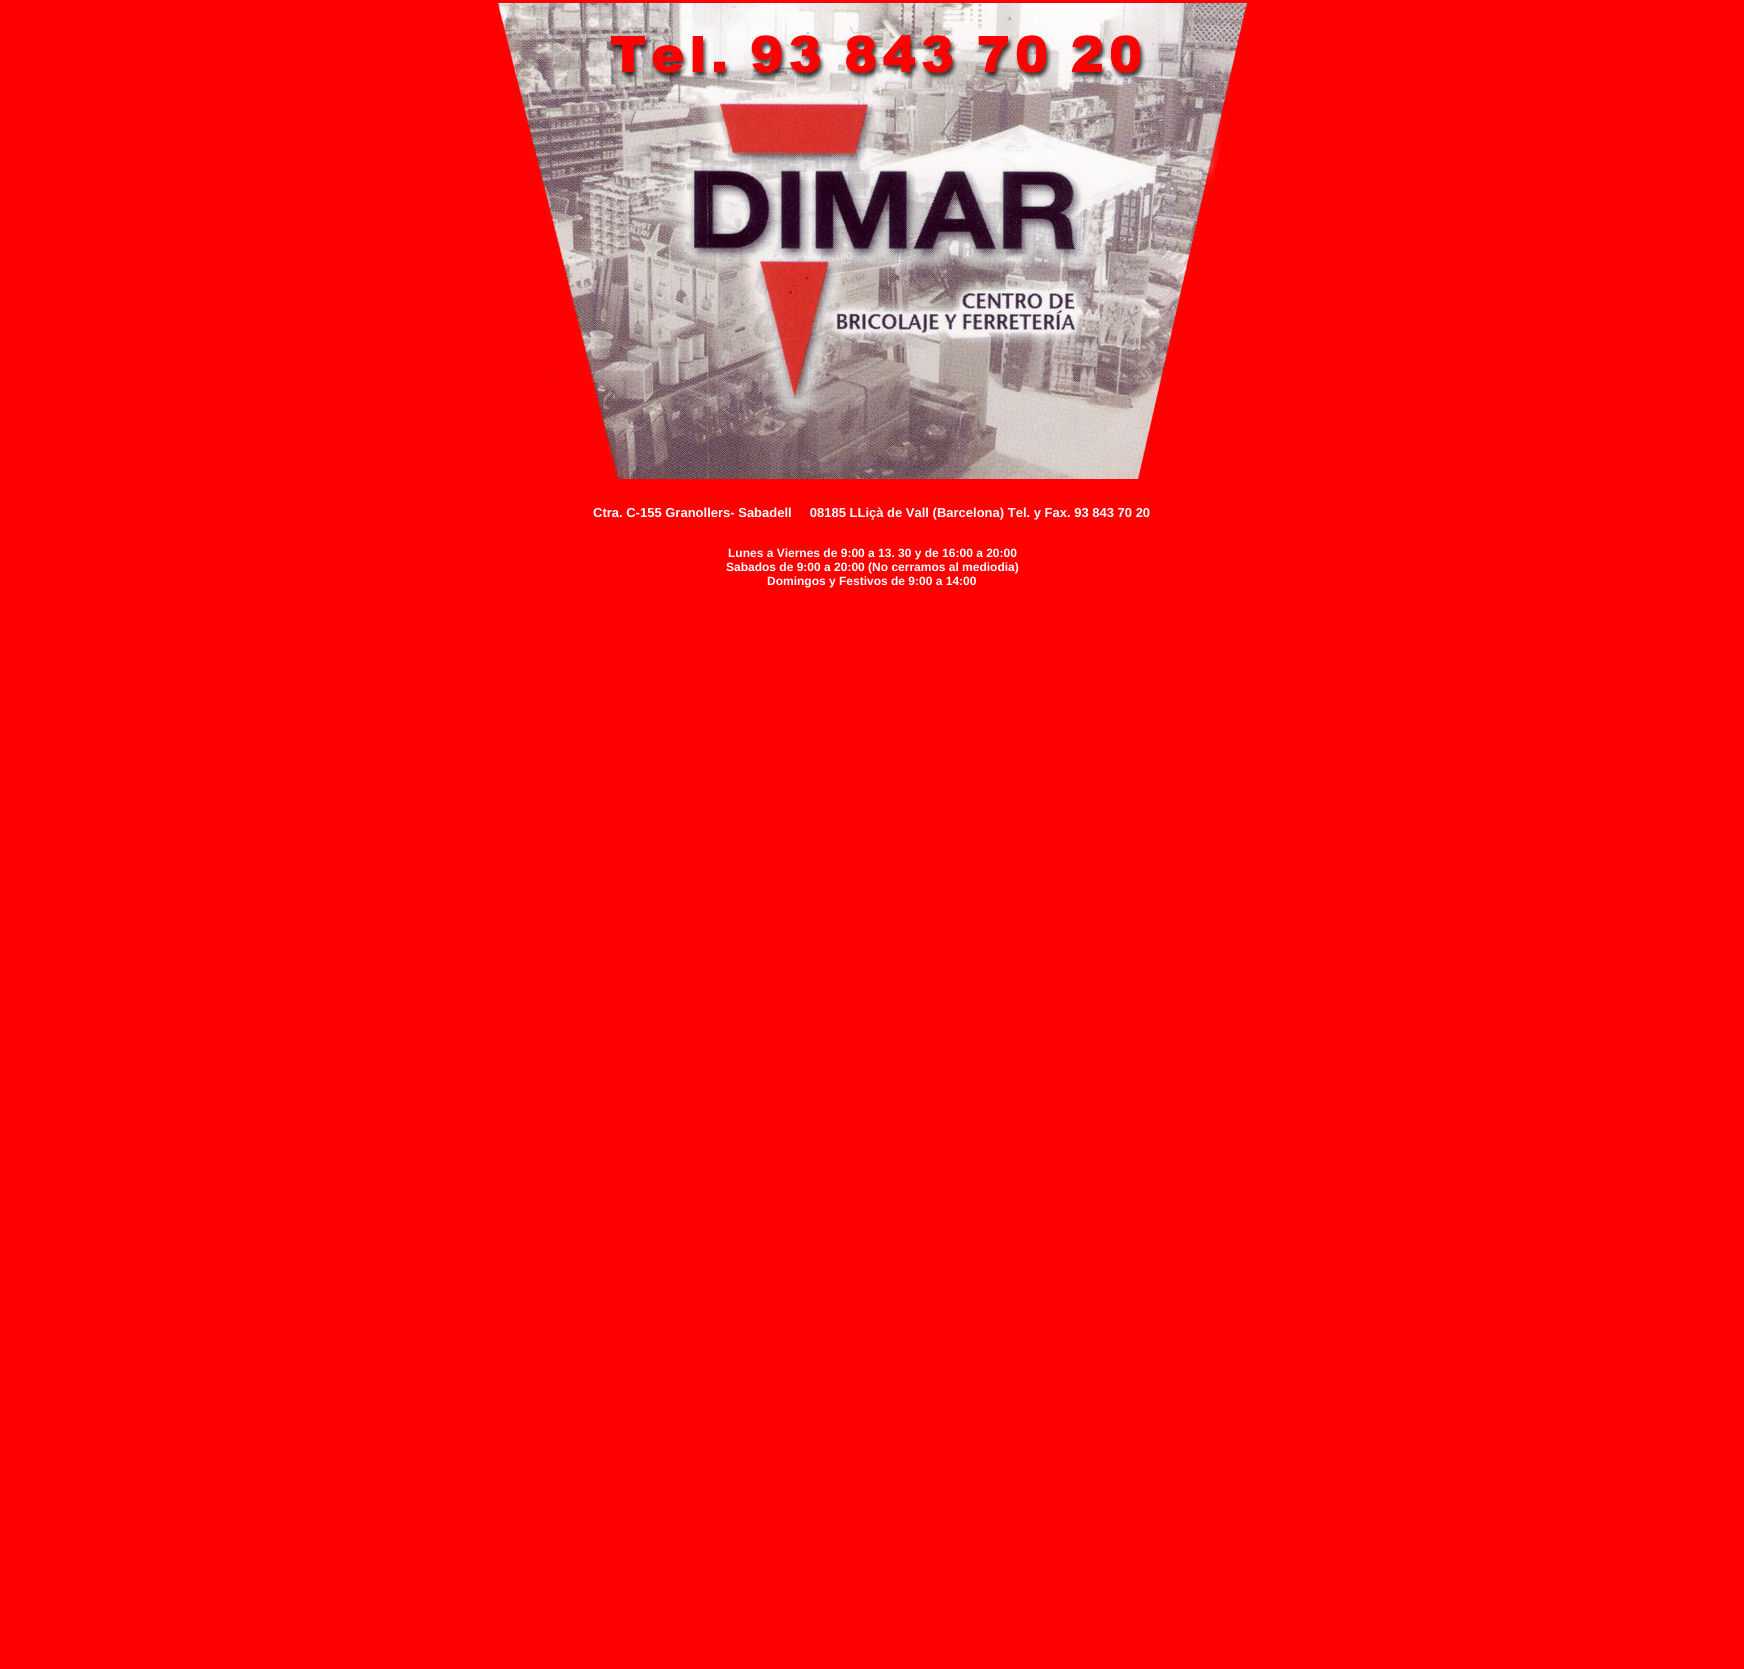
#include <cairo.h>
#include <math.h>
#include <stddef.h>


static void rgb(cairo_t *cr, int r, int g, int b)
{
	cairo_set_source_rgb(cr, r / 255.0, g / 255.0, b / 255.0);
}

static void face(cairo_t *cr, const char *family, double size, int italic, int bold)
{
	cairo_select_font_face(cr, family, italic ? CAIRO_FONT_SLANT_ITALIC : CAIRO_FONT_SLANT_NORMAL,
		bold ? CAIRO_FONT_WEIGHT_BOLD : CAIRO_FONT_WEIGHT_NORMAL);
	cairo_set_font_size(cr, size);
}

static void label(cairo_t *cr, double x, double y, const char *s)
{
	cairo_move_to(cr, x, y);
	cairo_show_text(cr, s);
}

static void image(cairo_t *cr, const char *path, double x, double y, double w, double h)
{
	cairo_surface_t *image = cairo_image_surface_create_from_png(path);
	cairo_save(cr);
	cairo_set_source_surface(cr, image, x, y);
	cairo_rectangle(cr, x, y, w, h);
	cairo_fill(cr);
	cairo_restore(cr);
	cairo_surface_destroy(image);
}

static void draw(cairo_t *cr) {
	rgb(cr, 255, 0, 0);
	cairo_paint(cr);
	image(cr, "image0.png", 497, 3, 750, 476);
	face(cr, "Liberation Sans", 13, 0, 1);
	rgb(cr, 255, 255, 255);
	label(cr, 593, 517, "Ctra. C-155 Granollers- Sabadell     08185 LLiçà de Vall (Barcelona) Tel. y Fax. 93 843 70 20");
	face(cr, "Liberation Sans", 12, 0, 1);
	label(cr, 728, 557, "Lunes a Viernes de 9:00 a 13. 30 y de 16:00 a 20:00");
	label(cr, 726, 571, "Sabados de 9:00 a 20:00 (No cerramos al mediodia)");
	label(cr, 767, 585, "Domingos y Festivos de 9:00 a 14:00");
}

int main(void) {
	cairo_surface_t *surface = cairo_image_surface_create(CAIRO_FORMAT_RGB24, 1744, 1669);
	cairo_t *cr = cairo_create(surface);
	cairo_font_options_t *options = cairo_font_options_create();
	cairo_font_options_set_hint_metrics(options, CAIRO_HINT_METRICS_OFF);
	cairo_font_options_set_hint_style(options, CAIRO_HINT_STYLE_NONE);
	cairo_set_font_options(cr, options);
	cairo_set_miter_limit(cr, 4);
	draw(cr);
	cairo_surface_write_to_png(surface, "render.png");
	cairo_font_options_destroy(options);
	cairo_destroy(cr);
	cairo_surface_destroy(surface);
	return 0;
}
